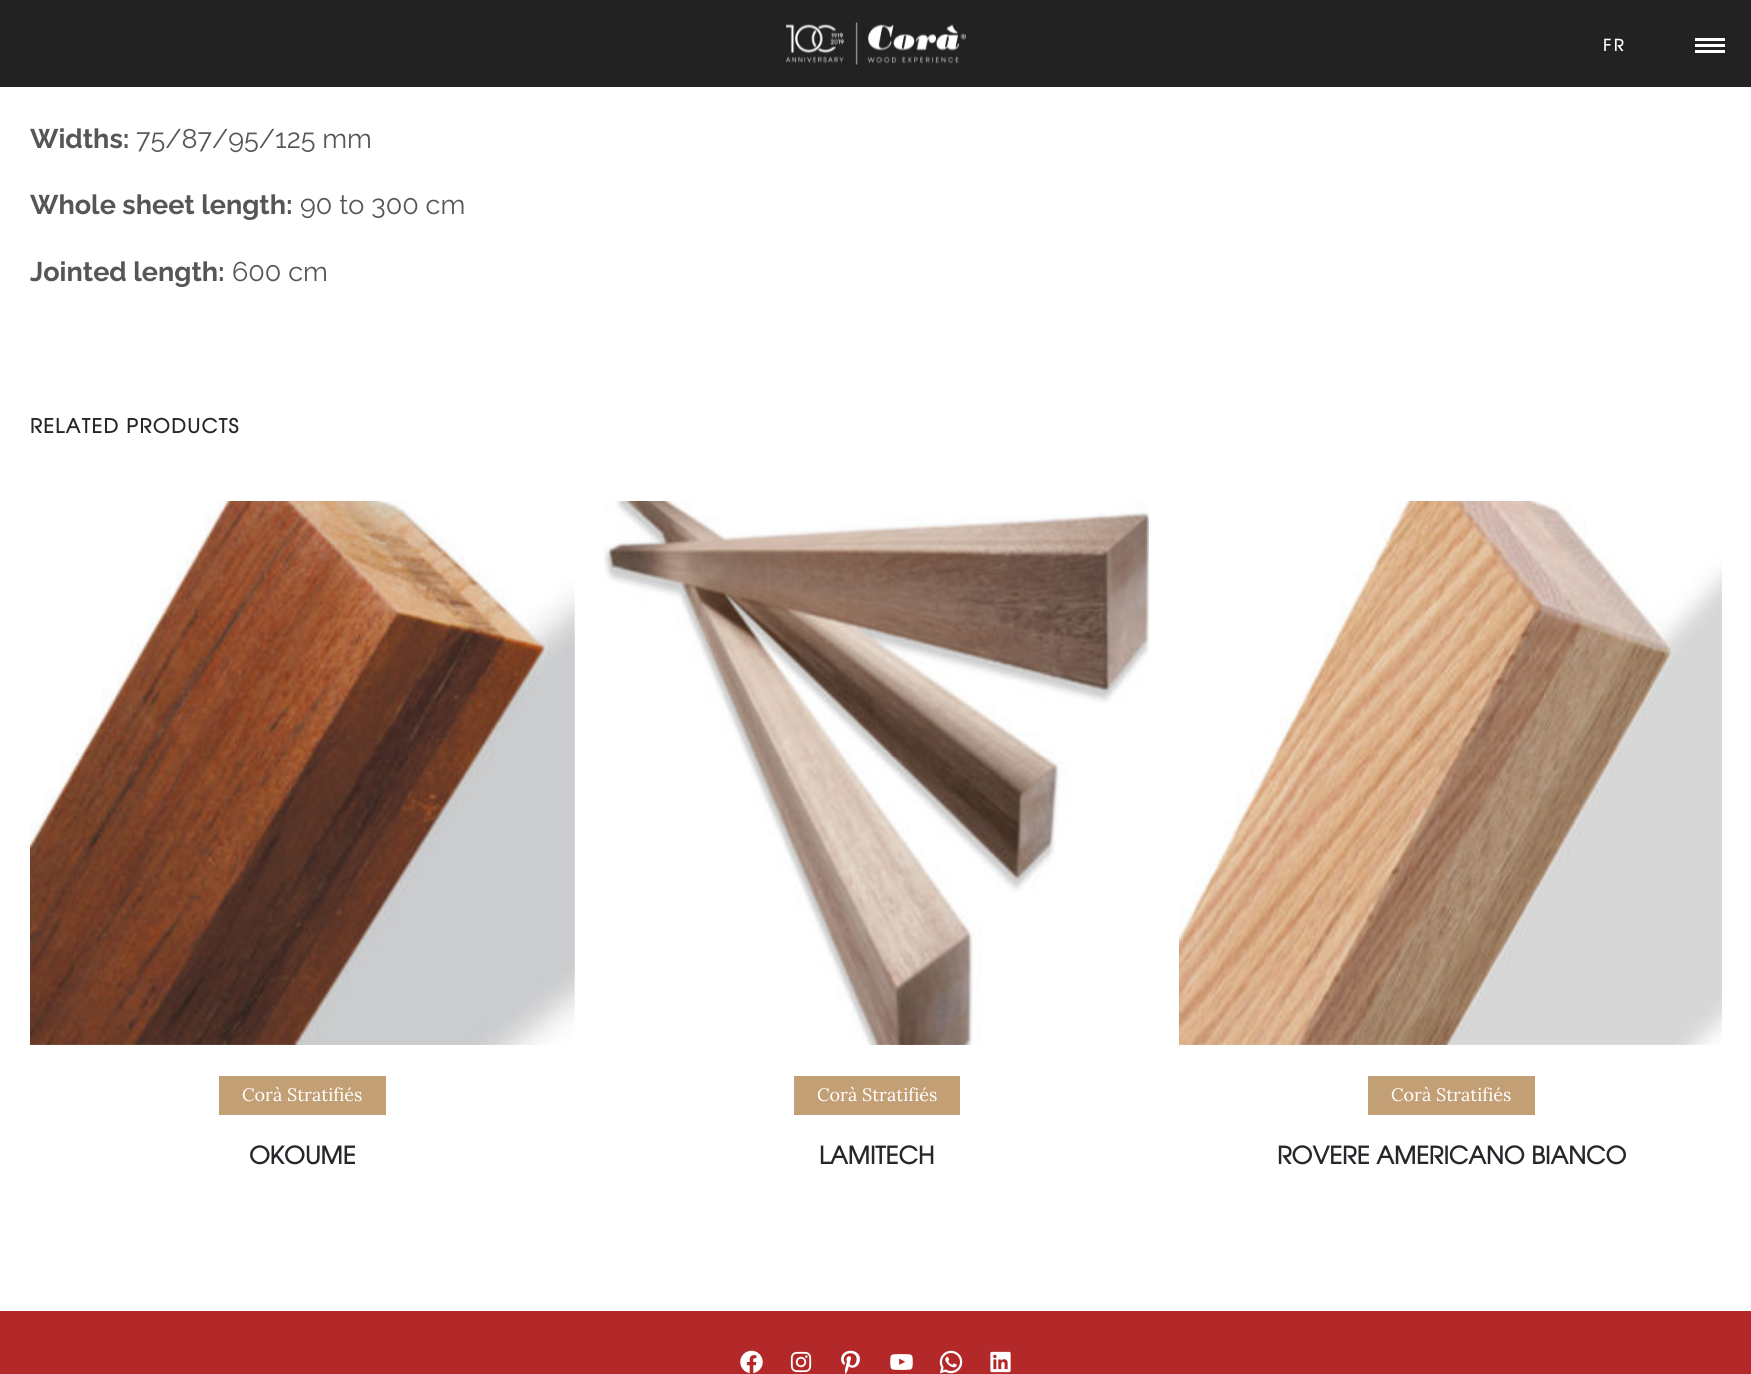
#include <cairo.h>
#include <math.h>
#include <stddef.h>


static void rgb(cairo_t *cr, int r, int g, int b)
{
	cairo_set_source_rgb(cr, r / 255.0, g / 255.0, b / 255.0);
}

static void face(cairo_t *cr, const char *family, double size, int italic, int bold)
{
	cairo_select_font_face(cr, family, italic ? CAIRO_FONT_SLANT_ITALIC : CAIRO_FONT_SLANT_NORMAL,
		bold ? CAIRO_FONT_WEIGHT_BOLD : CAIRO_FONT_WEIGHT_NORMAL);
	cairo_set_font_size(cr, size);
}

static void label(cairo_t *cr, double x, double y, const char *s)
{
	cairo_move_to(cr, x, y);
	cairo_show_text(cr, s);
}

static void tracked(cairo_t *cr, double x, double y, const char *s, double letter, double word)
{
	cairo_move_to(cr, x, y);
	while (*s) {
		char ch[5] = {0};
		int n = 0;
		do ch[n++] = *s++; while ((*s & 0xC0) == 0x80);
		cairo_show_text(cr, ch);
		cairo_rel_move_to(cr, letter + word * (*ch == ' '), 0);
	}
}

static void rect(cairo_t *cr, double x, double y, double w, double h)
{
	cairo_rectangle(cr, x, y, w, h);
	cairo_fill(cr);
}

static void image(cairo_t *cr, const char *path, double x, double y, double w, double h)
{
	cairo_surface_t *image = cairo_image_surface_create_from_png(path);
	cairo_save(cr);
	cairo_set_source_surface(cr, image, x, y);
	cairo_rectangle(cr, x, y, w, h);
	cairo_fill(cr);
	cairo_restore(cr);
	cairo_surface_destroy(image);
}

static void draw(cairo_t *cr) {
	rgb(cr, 255, 255, 255);
	cairo_paint(cr);
	rgb(cr, 34, 34, 34);
	rect(cr, 0, 0, 1751, 87);
	image(cr, "image0.png", 786, 22, 180, 43);
	face(cr, "TeX Gyre Adventor", 16, 0, 1);
	rgb(cr, 255, 255, 255);
	tracked(cr, 1603, 51, "FR", 3, 0);
	rect(cr, 1695, 38, 30, 3);
	rect(cr, 1695, 44, 30, 3);
	rect(cr, 1695, 50, 30, 3);
	face(cr, "Raleway", 27, 0, 1);
	rgb(cr, 86, 86, 86);
	label(cr, 30, 148, "Widths:");
	face(cr, "Raleway", 27, 0, 0);
	label(cr, 136, 148, "75/87/95/125 mm");
	face(cr, "Raleway", 27, 0, 1);
	label(cr, 30, 214, "Whole sheet length:");
	face(cr, "Raleway", 27, 0, 0);
	label(cr, 300, 214, "90 to 300 cm");
	face(cr, "Raleway", 27, 0, 1);
	label(cr, 30, 281, "Jointed length:");
	face(cr, "Raleway", 27, 0, 0);
	label(cr, 232, 281, "600 cm");
	face(cr, "TeX Gyre Adventor", 19.5, 0, 1);
	rgb(cr, 40, 38, 43);
	tracked(cr, 30, 433, "RELATED PRODUCTS", 1.5, 0);
	image(cr, "image1.png", 30, 501, 545, 544);
	image(cr, "image2.png", 30, 604, 545, 441);
	rgb(cr, 195, 159, 118);
	rect(cr, 219, 1076, 167, 39);
	face(cr, "Lora", 18, 0, 0);
	rgb(cr, 255, 255, 255);
	label(cr, 242, 1101, "Corà Stratifiés");
	face(cr, "TeX Gyre Adventor", 24, 0, 1);
	rgb(cr, 40, 38, 43);
	label(cr, 249, 1164, "OKOUME");
	image(cr, "image3.png", 604, 501, 545, 544);
	image(cr, "image4.png", 870, 515, 279, 530);
	rgb(cr, 195, 159, 118);
	rect(cr, 794, 1076, 166, 39);
	face(cr, "Lora", 18, 0, 0);
	rgb(cr, 255, 255, 255);
	label(cr, 817, 1101, "Corà Stratifiés");
	face(cr, "TeX Gyre Adventor", 24, 0, 1);
	rgb(cr, 40, 38, 43);
	label(cr, 819, 1164, "LAMITECH");
	image(cr, "image5.png", 1179, 501, 543, 544);
	image(cr, "image6.png", 1179, 1044, 516, 1);
	rgb(cr, 195, 159, 118);
	rect(cr, 1368, 1076, 167, 39);
	face(cr, "Lora", 18, 0, 0);
	rgb(cr, 255, 255, 255);
	label(cr, 1391, 1101, "Corà Stratifiés");
	face(cr, "TeX Gyre Adventor", 24, 0, 1);
	rgb(cr, 40, 38, 43);
	label(cr, 1277, 1164, "ROVERE AMERICANO BIANCO");
	rgb(cr, 179, 41, 41);
	rect(cr, 0, 1311, 1751, 63);
	image(cr, "image7.png", 740, 1350, 23, 24);
	image(cr, "image8.png", 790, 1351, 22, 22);
	image(cr, "image9.png", 841, 1350, 19, 24);
	image(cr, "image10.png", 890, 1354, 23, 16);
	image(cr, "image11.png", 939, 1350, 24, 24);
	image(cr, "image12.png", 990, 1351, 21, 22);
}

int main(void) {
	cairo_surface_t *surface = cairo_image_surface_create(CAIRO_FORMAT_RGB24, 1751, 1374);
	cairo_t *cr = cairo_create(surface);
	cairo_font_options_t *options = cairo_font_options_create();
	cairo_font_options_set_hint_metrics(options, CAIRO_HINT_METRICS_OFF);
	cairo_font_options_set_hint_style(options, CAIRO_HINT_STYLE_NONE);
	cairo_set_font_options(cr, options);
	cairo_set_miter_limit(cr, 4);
	draw(cr);
	cairo_surface_write_to_png(surface, "render.png");
	cairo_font_options_destroy(options);
	cairo_destroy(cr);
	cairo_surface_destroy(surface);
	return 0;
}
